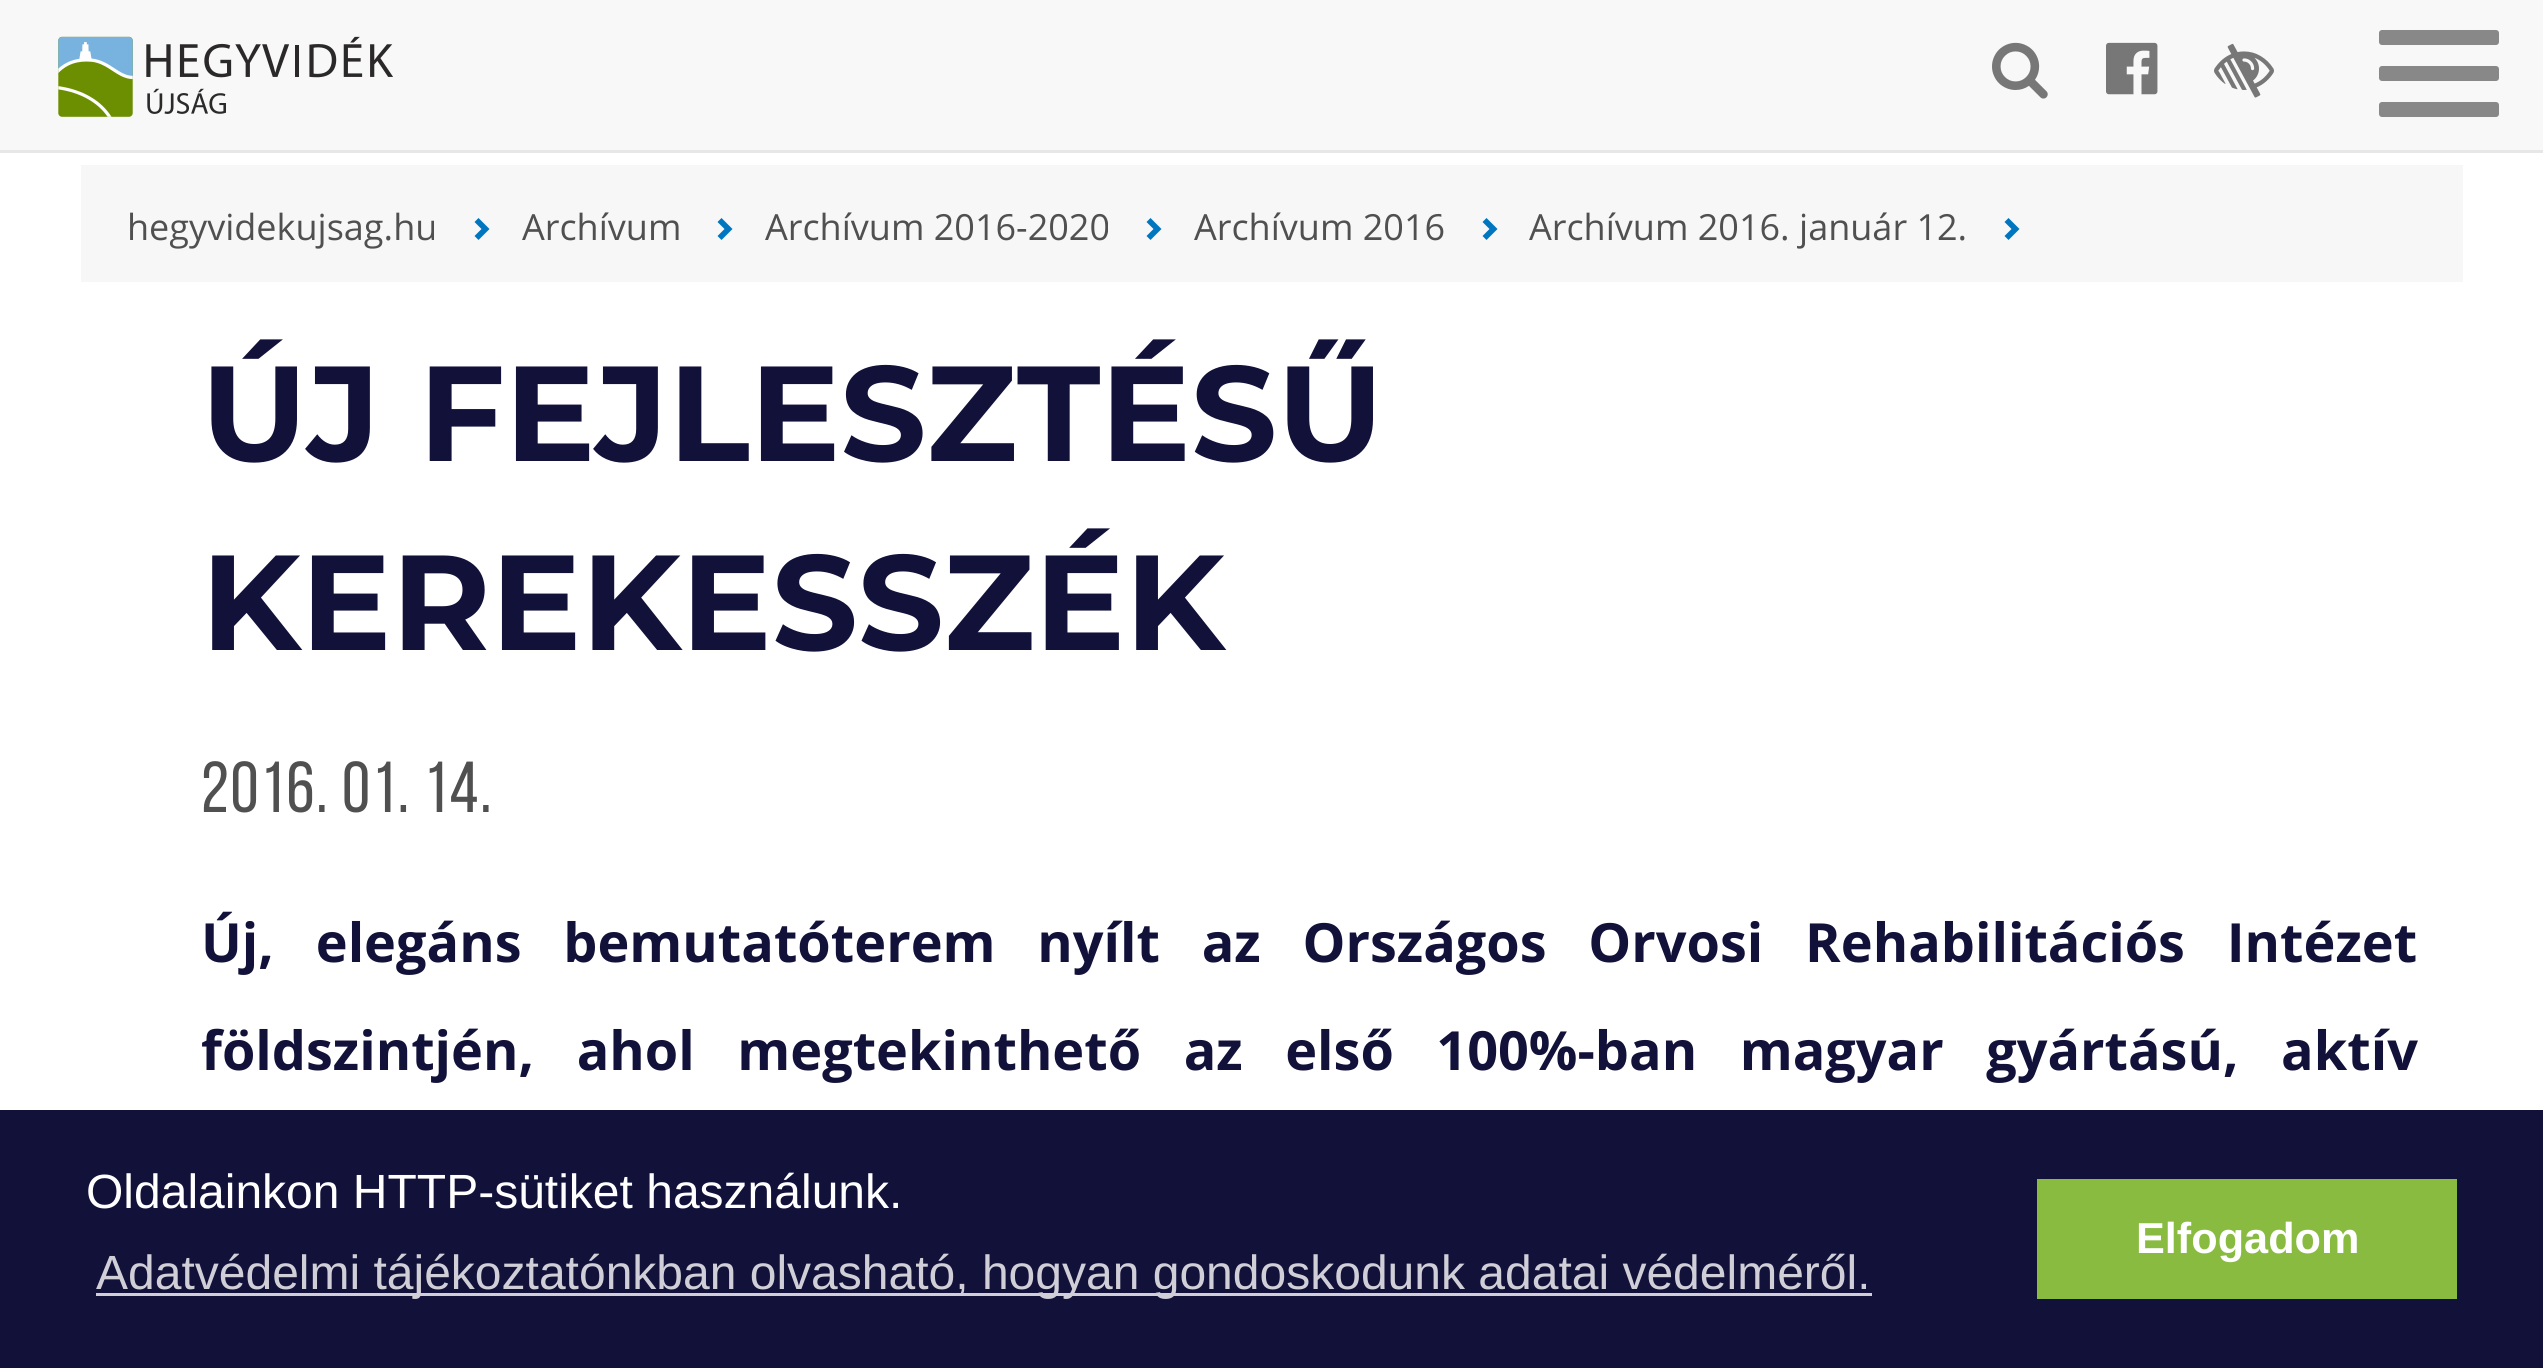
#include <cairo.h>
#include <math.h>
#include <stddef.h>


static void rgb(cairo_t *cr, int r, int g, int b)
{
	cairo_set_source_rgb(cr, r / 255.0, g / 255.0, b / 255.0);
}

static void face(cairo_t *cr, const char *family, double size, int italic, int bold)
{
	cairo_select_font_face(cr, family, italic ? CAIRO_FONT_SLANT_ITALIC : CAIRO_FONT_SLANT_NORMAL,
		bold ? CAIRO_FONT_WEIGHT_BOLD : CAIRO_FONT_WEIGHT_NORMAL);
	cairo_set_font_size(cr, size);
}

static void label(cairo_t *cr, double x, double y, const char *s)
{
	cairo_move_to(cr, x, y);
	cairo_show_text(cr, s);
}

static void tracked(cairo_t *cr, double x, double y, const char *s, double letter, double word)
{
	cairo_move_to(cr, x, y);
	while (*s) {
		char ch[5] = {0};
		int n = 0;
		do ch[n++] = *s++; while ((*s & 0xC0) == 0x80);
		cairo_show_text(cr, ch);
		cairo_rel_move_to(cr, letter + word * (*ch == ' '), 0);
	}
}

static void rect(cairo_t *cr, double x, double y, double w, double h)
{
	cairo_rectangle(cr, x, y, w, h);
	cairo_fill(cr);
}

static void rrect(cairo_t *cr, double x, double y, double w, double h, double r)
{
	cairo_new_sub_path(cr);
	cairo_arc(cr, x + w - r, y + h - r, r, 0, M_PI / 2);
	cairo_arc(cr, x + r, y + h - r, r, M_PI / 2, M_PI);
	cairo_arc(cr, x + r, y + r, r, M_PI, 1.5 * M_PI);
	cairo_arc(cr, x + w - r, y + r, r, 1.5 * M_PI, 2 * M_PI);
	cairo_close_path(cr);
}

static void image(cairo_t *cr, const char *path, double x, double y, double w, double h)
{
	cairo_surface_t *image = cairo_image_surface_create_from_png(path);
	cairo_save(cr);
	cairo_set_source_surface(cr, image, x, y);
	cairo_rectangle(cr, x, y, w, h);
	cairo_fill(cr);
	cairo_restore(cr);
	cairo_surface_destroy(image);
}

static void draw(cairo_t *cr) {
	rgb(cr, 255, 255, 255);
	cairo_paint(cr);
	rgb(cr, 248, 248, 248);
	rect(cr, 0, 0, 2543, 150);
	rgb(cr, 231, 231, 231);
	rect(cr, 0, 150, 2543, 3);
	image(cr, "image0.png", 58, 36, 335, 81);
	image(cr, "image1.png", 1992, 42, 56, 57);
	image(cr, "image2.png", 2106, 42, 52, 53);
	image(cr, "image3.png", 2214, 43, 60, 55);
	rgb(cr, 136, 136, 136);
	rrect(cr, 2379, 30, 120, 15, 3);
	cairo_fill(cr);
	rrect(cr, 2379, 66, 120, 15, 3);
	cairo_fill(cr);
	rrect(cr, 2379, 102, 120, 15, 3);
	cairo_fill(cr);
	rgb(cr, 247, 247, 247);
	rect(cr, 81, 165, 2382, 117);
	face(cr, "Open Sans", 36, 0, 0);
	rgb(cr, 80, 80, 80);
	label(cr, 127, 240, "hegyvidekujsag.hu");
	rgb(cr, 0, 117, 192);
	cairo_new_path(cr);
	cairo_move_to(cr, 489.5, 229);
	cairo_line_to(cr, 478.5, 240);
	cairo_line_to(cr, 474.5, 236);
	cairo_line_to(cr, 481.5, 229);
	cairo_line_to(cr, 474.5, 222);
	cairo_line_to(cr, 478.5, 218);
	cairo_close_path(cr);
	cairo_fill(cr);
	rgb(cr, 80, 80, 80);
	label(cr, 522, 240, "Archívum");
	rgb(cr, 0, 117, 192);
	cairo_new_path(cr);
	cairo_move_to(cr, 732.5, 229);
	cairo_line_to(cr, 721.5, 240);
	cairo_line_to(cr, 717.5, 236);
	cairo_line_to(cr, 724.5, 229);
	cairo_line_to(cr, 717.5, 222);
	cairo_line_to(cr, 721.5, 218);
	cairo_close_path(cr);
	cairo_fill(cr);
	rgb(cr, 80, 80, 80);
	label(cr, 765, 240, "Archívum 2016-2020");
	rgb(cr, 0, 117, 192);
	cairo_new_path(cr);
	cairo_move_to(cr, 1161.5, 229);
	cairo_line_to(cr, 1150.5, 240);
	cairo_line_to(cr, 1146.5, 236);
	cairo_line_to(cr, 1153.5, 229);
	cairo_line_to(cr, 1146.5, 222);
	cairo_line_to(cr, 1150.5, 218);
	cairo_close_path(cr);
	cairo_fill(cr);
	rgb(cr, 80, 80, 80);
	label(cr, 1194, 240, "Archívum 2016");
	rgb(cr, 0, 117, 192);
	cairo_new_path(cr);
	cairo_move_to(cr, 1497.5, 229);
	cairo_line_to(cr, 1486.5, 240);
	cairo_line_to(cr, 1482.5, 236);
	cairo_line_to(cr, 1489.5, 229);
	cairo_line_to(cr, 1482.5, 222);
	cairo_line_to(cr, 1486.5, 218);
	cairo_close_path(cr);
	cairo_fill(cr);
	rgb(cr, 80, 80, 80);
	label(cr, 1529, 240, "Archívum 2016. január 12.");
	rgb(cr, 0, 117, 192);
	cairo_new_path(cr);
	cairo_move_to(cr, 2019.5, 229);
	cairo_line_to(cr, 2008.5, 240);
	cairo_line_to(cr, 2004.5, 236);
	cairo_line_to(cr, 2011.5, 229);
	cairo_line_to(cr, 2004.5, 222);
	cairo_line_to(cr, 2008.5, 218);
	cairo_close_path(cr);
	cairo_fill(cr);
	face(cr, "Montserrat", 135, 0, 1);
	rgb(cr, 18, 17, 58);
	label(cr, 201, 461, "ÚJ FEJLESZTÉSŰ");
	label(cr, 201, 650, "KEREKESSZÉK");
	face(cr, "Bebas Neue", 72, 0, 0);
	rgb(cr, 80, 80, 80);
	tracked(cr, 201, 812, "2016. 01. 14.", 1.75, 0);
	face(cr, "Open Sans", 54, 0, 1);
	rgb(cr, 18, 17, 58);
	tracked(cr, 201, 962, "Új, elegáns bemutatóterem nyílt az Országos Orvosi Rehabilitációs Intézet", 0, 27.75);
	tracked(cr, 201, 1070, "földszintjén, ahol megtekinthető az első 100%-ban magyar gyártású, aktív", 0, 28.5);
	rect(cr, 0, 1110, 2543, 258);
	face(cr, "Liberation Sans", 48, 0, 0);
	rgb(cr, 255, 255, 255);
	label(cr, 86, 1208, "Oldalainkon HTTP-sütiket használunk.");
	rgb(cr, 208, 207, 216);
	rect(cr, 96, 1293, 1776, 3);
	label(cr, 96, 1289, "Adatvédelmi tájékoztatónkban olvasható, hogyan gondoskodunk adatai védelméről.");
	rgb(cr, 137, 187, 64);
	rect(cr, 2037, 1179, 420, 120);
	face(cr, "Liberation Sans", 43.25, 0, 1);
	rgb(cr, 255, 255, 255);
	label(cr, 2136, 1253, "Elfogadom");
}

int main(void) {
	cairo_surface_t *surface = cairo_image_surface_create(CAIRO_FORMAT_RGB24, 2543, 1368);
	cairo_t *cr = cairo_create(surface);
	cairo_font_options_t *options = cairo_font_options_create();
	cairo_font_options_set_hint_metrics(options, CAIRO_HINT_METRICS_OFF);
	cairo_font_options_set_hint_style(options, CAIRO_HINT_STYLE_NONE);
	cairo_set_font_options(cr, options);
	cairo_set_miter_limit(cr, 4);
	draw(cr);
	cairo_surface_write_to_png(surface, "render.png");
	cairo_font_options_destroy(options);
	cairo_destroy(cr);
	cairo_surface_destroy(surface);
	return 0;
}
